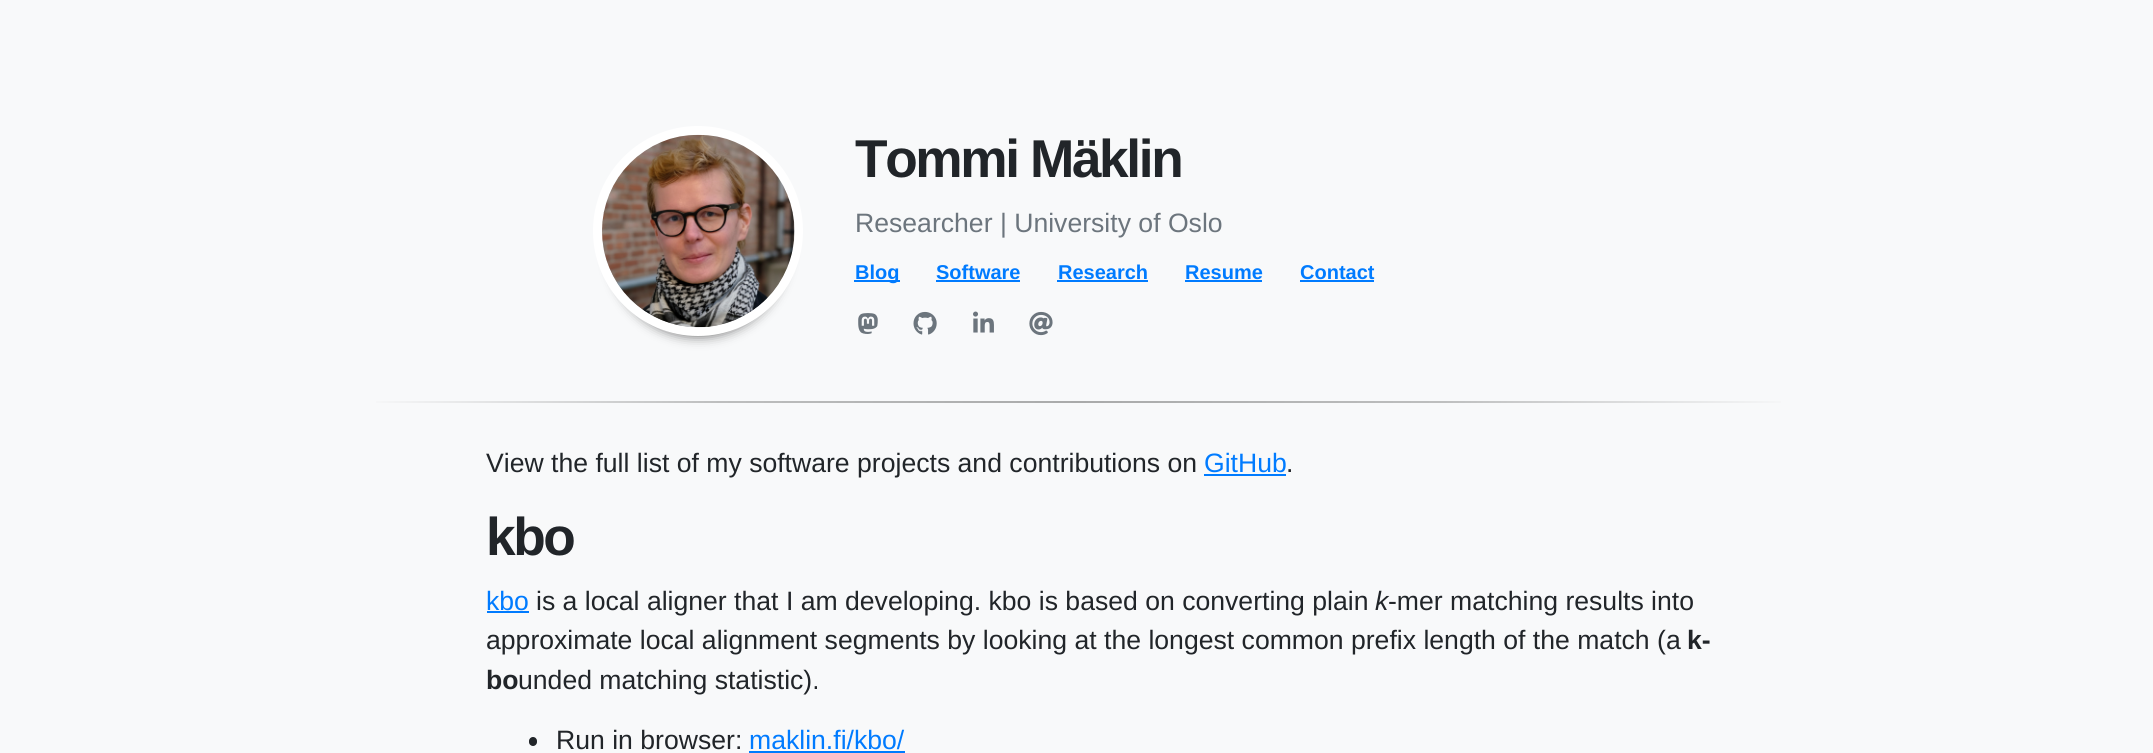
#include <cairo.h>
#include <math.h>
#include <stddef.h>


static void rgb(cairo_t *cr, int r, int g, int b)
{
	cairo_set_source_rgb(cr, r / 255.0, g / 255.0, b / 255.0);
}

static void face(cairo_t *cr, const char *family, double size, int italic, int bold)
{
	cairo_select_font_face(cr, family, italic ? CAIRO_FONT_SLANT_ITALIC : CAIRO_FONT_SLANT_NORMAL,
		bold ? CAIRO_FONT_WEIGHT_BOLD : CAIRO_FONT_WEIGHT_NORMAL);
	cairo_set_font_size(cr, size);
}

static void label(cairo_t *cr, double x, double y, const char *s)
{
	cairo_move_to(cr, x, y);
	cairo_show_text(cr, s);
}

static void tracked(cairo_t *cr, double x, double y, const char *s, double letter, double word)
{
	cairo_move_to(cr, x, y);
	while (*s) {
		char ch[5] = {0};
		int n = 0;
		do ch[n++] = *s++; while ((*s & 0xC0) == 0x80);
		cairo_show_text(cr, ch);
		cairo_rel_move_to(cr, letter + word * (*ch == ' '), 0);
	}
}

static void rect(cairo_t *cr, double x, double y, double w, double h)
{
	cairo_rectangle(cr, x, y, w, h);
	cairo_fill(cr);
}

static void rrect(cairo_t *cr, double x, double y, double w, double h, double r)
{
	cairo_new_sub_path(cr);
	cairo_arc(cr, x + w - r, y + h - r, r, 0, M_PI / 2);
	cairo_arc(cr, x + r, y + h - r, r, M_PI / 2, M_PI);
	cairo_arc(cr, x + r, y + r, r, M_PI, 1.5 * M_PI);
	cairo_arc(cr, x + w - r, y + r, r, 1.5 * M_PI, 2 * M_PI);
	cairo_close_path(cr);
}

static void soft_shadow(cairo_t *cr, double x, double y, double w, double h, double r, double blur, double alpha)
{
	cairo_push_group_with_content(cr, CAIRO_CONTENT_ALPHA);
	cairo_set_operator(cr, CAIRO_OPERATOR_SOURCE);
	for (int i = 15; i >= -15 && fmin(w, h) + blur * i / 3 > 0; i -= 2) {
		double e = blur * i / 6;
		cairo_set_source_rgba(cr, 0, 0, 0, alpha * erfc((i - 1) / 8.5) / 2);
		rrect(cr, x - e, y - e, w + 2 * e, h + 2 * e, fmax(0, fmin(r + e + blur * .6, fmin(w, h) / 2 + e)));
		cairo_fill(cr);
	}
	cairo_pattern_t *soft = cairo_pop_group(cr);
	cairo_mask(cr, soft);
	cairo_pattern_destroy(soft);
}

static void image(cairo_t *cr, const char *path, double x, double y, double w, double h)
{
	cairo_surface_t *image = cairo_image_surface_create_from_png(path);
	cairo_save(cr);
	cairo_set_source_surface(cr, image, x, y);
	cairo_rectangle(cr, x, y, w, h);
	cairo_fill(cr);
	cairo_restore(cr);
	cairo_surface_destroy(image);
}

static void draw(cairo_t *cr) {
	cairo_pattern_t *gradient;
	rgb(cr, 248, 249, 250);
	cairo_paint(cr);
	rgb(cr, 0, 0, 0);
	soft_shadow(cr, 611, 161, 175, 175, 87.5, 6, 0.6);
	cairo_arc(cr, 698, 231, 100.5, 0, 2 * M_PI);
	rgb(cr, 255, 255, 255);
	cairo_set_line_width(cr, 9);
	cairo_stroke(cr);
	image(cr, "image0.png", 602, 134, 193, 194);
	face(cr, "Liberation Sans", 53.25, 0, 1);
	rgb(cr, 33, 37, 41);
	tracked(cr, 855, 177, "Tommi Mäklin", -2.4, 0);
	face(cr, "Liberation Sans", 26.6, 0, 0);
	rgb(cr, 108, 117, 125);
	label(cr, 855, 232, "Researcher | University of Oslo");
	rgb(cr, 0, 123, 255);
	rect(cr, 854, 280, 46, 2);
	face(cr, "Liberation Sans", 20, 0, 1);
	label(cr, 855, 279, "Blog");
	label(cr, 936, 279, "Software");
	rect(cr, 936, 280, 84, 2);
	label(cr, 1058, 279, "Research");
	rect(cr, 1057, 280, 91, 2);
	label(cr, 1185, 279, "Resume");
	rect(cr, 1185, 280, 77, 2);
	label(cr, 1300, 279, "Contact");
	rect(cr, 1300, 280, 74, 2);
	image(cr, "image1.png", 858, 313, 20, 21);
	image(cr, "image2.png", 913, 311, 24, 24);
	image(cr, "image3.png", 973, 311, 21, 22);
	image(cr, "image4.png", 1029, 311, 24, 25);
	gradient = cairo_pattern_create_linear(361, 402, 1796, 402);
	cairo_pattern_add_color_stop_rgba(gradient, 0, 0.973, 0.976, 0.98, 1);
	cairo_pattern_add_color_stop_rgba(gradient, 0.25, 0.741, 0.745, 0.745, 1);
	cairo_pattern_add_color_stop_rgba(gradient, 0.5, 0.663, 0.667, 0.667, 1);
	cairo_pattern_add_color_stop_rgba(gradient, 0.75, 0.741, 0.745, 0.745, 1);
	cairo_pattern_add_color_stop_rgba(gradient, 1, 0.973, 0.976, 0.98, 1);
	cairo_set_source(cr, gradient);
	cairo_pattern_destroy(gradient);
	rect(cr, 376, 401, 1405, 2);
	face(cr, "Liberation Sans", 26.6, 0, 0);
	rgb(cr, 33, 37, 41);
	label(cr, 486, 472, "View the full list of my software projects and contributions on");
	rgb(cr, 0, 123, 255);
	label(cr, 1204, 472, "GitHub");
	rect(cr, 1204, 474, 82, 2);
	rgb(cr, 33, 37, 41);
	label(cr, 1286, 472, ".");
	face(cr, "Liberation Sans", 53.25, 0, 1);
	tracked(cr, 486, 555, "kbo", -2.4, 0);
	face(cr, "Liberation Sans", 26.6, 0, 0);
	rgb(cr, 0, 123, 255);
	label(cr, 486, 610, "kbo");
	rect(cr, 487, 611, 42, 2);
	rgb(cr, 33, 37, 41);
	label(cr, 536, 610, "is a local aligner that I am developing. kbo is based on converting plain");
	face(cr, "Liberation Sans", 26.6, 1, 0);
	label(cr, 1375, 610, "k");
	face(cr, "Liberation Sans", 26.6, 0, 0);
	label(cr, 1388, 610, "-mer matching results into");
	label(cr, 486, 649, "approximate local alignment segments by looking at the longest common prefix length of the match (a");
	face(cr, "Liberation Sans", 26.6, 0, 1);
	label(cr, 1687, 649, "k-");
	label(cr, 486, 689, "bo");
	face(cr, "Liberation Sans", 26.6, 0, 0);
	label(cr, 518, 689, "unded matching statistic).");
	rrect(cr, 529, 737, 8, 9, 4);
	cairo_fill(cr);
	label(cr, 556, 749, "Run in browser:");
	rgb(cr, 0, 123, 255);
	label(cr, 749, 749, "maklin.fi/kbo/");
	rect(cr, 749, 751, 156, 2);
}

int main(void) {
	cairo_surface_t *surface = cairo_image_surface_create(CAIRO_FORMAT_RGB24, 2153, 753);
	cairo_t *cr = cairo_create(surface);
	cairo_font_options_t *options = cairo_font_options_create();
	cairo_font_options_set_hint_metrics(options, CAIRO_HINT_METRICS_OFF);
	cairo_font_options_set_hint_style(options, CAIRO_HINT_STYLE_NONE);
	cairo_set_font_options(cr, options);
	cairo_set_miter_limit(cr, 4);
	draw(cr);
	cairo_surface_write_to_png(surface, "render.png");
	cairo_font_options_destroy(options);
	cairo_destroy(cr);
	cairo_surface_destroy(surface);
	return 0;
}
